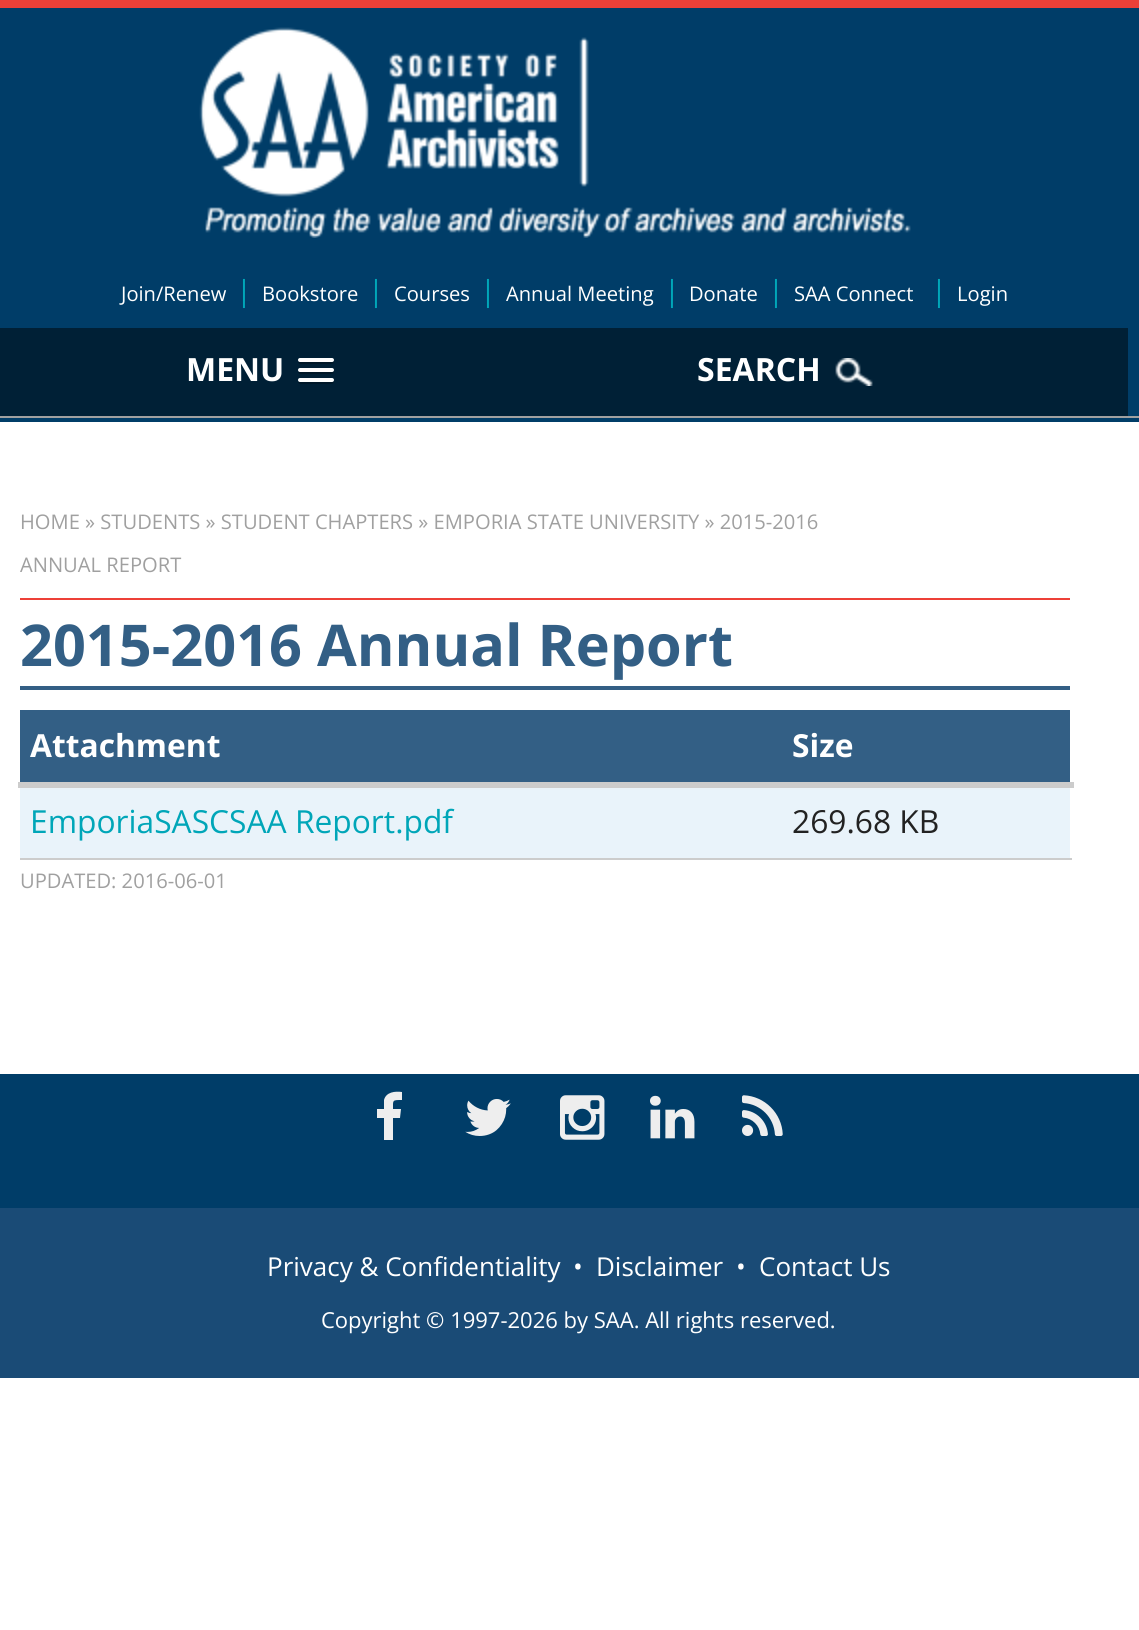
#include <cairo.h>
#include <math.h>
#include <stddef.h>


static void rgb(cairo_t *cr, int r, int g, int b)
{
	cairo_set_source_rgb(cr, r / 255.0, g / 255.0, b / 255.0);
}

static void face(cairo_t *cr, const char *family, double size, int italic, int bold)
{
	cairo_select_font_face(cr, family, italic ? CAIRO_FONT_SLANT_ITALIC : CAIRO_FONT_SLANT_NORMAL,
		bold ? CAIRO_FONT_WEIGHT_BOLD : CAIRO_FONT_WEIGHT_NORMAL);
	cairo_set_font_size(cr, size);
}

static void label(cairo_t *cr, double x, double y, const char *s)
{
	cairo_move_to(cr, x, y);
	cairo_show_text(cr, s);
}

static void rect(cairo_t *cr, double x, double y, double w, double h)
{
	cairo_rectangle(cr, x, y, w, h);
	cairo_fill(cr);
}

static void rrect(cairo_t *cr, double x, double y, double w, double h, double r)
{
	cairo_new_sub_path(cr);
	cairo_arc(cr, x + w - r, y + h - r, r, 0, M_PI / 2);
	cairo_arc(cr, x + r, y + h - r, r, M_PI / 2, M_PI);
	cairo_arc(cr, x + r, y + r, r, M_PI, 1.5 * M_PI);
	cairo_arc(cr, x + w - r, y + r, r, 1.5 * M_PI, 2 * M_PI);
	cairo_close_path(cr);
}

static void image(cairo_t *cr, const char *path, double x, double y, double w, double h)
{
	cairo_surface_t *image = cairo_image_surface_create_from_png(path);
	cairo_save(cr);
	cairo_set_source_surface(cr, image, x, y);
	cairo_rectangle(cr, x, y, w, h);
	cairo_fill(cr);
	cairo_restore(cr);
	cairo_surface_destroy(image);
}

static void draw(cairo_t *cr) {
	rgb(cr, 255, 255, 255);
	cairo_paint(cr);
	rgb(cr, 236, 64, 56);
	rect(cr, 0, 0, 1139, 8);
	rgb(cr, 0, 61, 104);
	rect(cr, 0, 8, 1139, 408);
	image(cr, "image0.png", 199, 27, 712, 211);
	face(cr, "Open Sans", 20.15, 0, 0);
	rgb(cr, 255, 255, 255);
	label(cr, 121, 301, "Join/Renew");
	face(cr, "Open Sans", 29, 0, 0);
	rgb(cr, 0, 166, 184);
	label(cr, 236, 301, "|");
	face(cr, "Open Sans", 20.15, 0, 0);
	rgb(cr, 255, 255, 255);
	label(cr, 262, 301, "Bookstore");
	face(cr, "Open Sans", 29, 0, 0);
	rgb(cr, 0, 166, 184);
	label(cr, 368, 301, "|");
	face(cr, "Open Sans", 20.15, 0, 0);
	rgb(cr, 255, 255, 255);
	label(cr, 394, 301, "Courses");
	face(cr, "Open Sans", 29, 0, 0);
	rgb(cr, 0, 166, 184);
	label(cr, 480, 301, "|");
	face(cr, "Open Sans", 20.15, 0, 0);
	rgb(cr, 255, 255, 255);
	label(cr, 506, 301, "Annual Meeting");
	face(cr, "Open Sans", 29, 0, 0);
	rgb(cr, 0, 166, 184);
	label(cr, 664, 301, "|");
	face(cr, "Open Sans", 20.15, 0, 0);
	rgb(cr, 255, 255, 255);
	label(cr, 689, 301, "Donate");
	face(cr, "Open Sans", 29, 0, 0);
	rgb(cr, 0, 166, 184);
	label(cr, 768, 301, "|");
	face(cr, "Open Sans", 20.15, 0, 0);
	rgb(cr, 255, 255, 255);
	label(cr, 794, 301, "SAA Connect");
	face(cr, "Open Sans", 29, 0, 0);
	rgb(cr, 0, 166, 184);
	label(cr, 931, 301, "|");
	face(cr, "Open Sans", 20.15, 0, 0);
	rgb(cr, 255, 255, 255);
	label(cr, 957, 301, "Login");
	rgb(cr, 0, 32, 54);
	rect(cr, 0, 328, 1128, 88);
	face(cr, "Open Sans", 32, 0, 1);
	rgb(cr, 255, 255, 255);
	label(cr, 186, 381, "MENU");
	rgb(cr, 0, 24, 41);
	cairo_new_path(cr);
	cairo_move_to(cr, 298.5, 361);
	cairo_curve_to(cr, 296, 365, 305, 364, 305.5, 364);
	cairo_line_to(cr, 326.5, 364);
	cairo_curve_to(cr, 327, 364, 336, 365, 333.5, 361);
	cairo_curve_to(cr, 333.5, 361.5, 332.5, 362, 332, 362);
	cairo_line_to(cr, 300, 362);
	cairo_curve_to(cr, 299.5, 362, 298.5, 361.5, 298.5, 361);
	cairo_close_path(cr);
	cairo_fill(cr);
	rgb(cr, 255, 255, 255);
	rrect(cr, 298, 358, 36, 4, 2);
	cairo_fill(cr);
	rgb(cr, 0, 24, 41);
	cairo_new_path(cr);
	cairo_move_to(cr, 298.5, 371);
	cairo_curve_to(cr, 296, 375, 305, 374, 305.5, 374);
	cairo_line_to(cr, 326.5, 374);
	cairo_curve_to(cr, 327, 374, 336, 375, 333.5, 371);
	cairo_curve_to(cr, 333.5, 371.5, 332.5, 372, 332, 372);
	cairo_line_to(cr, 300, 372);
	cairo_curve_to(cr, 299.5, 372, 298.5, 371.5, 298.5, 371);
	cairo_close_path(cr);
	cairo_fill(cr);
	rgb(cr, 255, 255, 255);
	rrect(cr, 298, 368, 36, 4, 2);
	cairo_fill(cr);
	rgb(cr, 0, 24, 41);
	cairo_new_path(cr);
	cairo_move_to(cr, 298.5, 381);
	cairo_curve_to(cr, 296, 385, 305, 384, 305.5, 384);
	cairo_line_to(cr, 326.5, 384);
	cairo_curve_to(cr, 327, 384, 336, 385, 333.5, 381);
	cairo_curve_to(cr, 333.5, 381.5, 332.5, 382, 332, 382);
	cairo_line_to(cr, 300, 382);
	cairo_curve_to(cr, 299.5, 382, 298.5, 381.5, 298.5, 381);
	cairo_close_path(cr);
	cairo_fill(cr);
	rgb(cr, 255, 255, 255);
	rrect(cr, 298, 378, 36, 4, 2);
	cairo_fill(cr);
	label(cr, 697, 381, "SEARCH");
	image(cr, "image1.png", 835, 358, 38, 28);
	rgb(cr, 160, 160, 160);
	rect(cr, 0, 416, 1139, 2);
	rgb(cr, 0, 61, 104);
	rect(cr, 0, 418, 1139, 4);
	rgb(cr, 237, 64, 56);
	rect(cr, 20, 598, 1050, 2);
	face(cr, "Open Sans", 20.15, 0, 0);
	rgb(cr, 160, 160, 160);
	label(cr, 20, 529, "HOME » STUDENTS » STUDENT CHAPTERS » EMPORIA STATE UNIVERSITY » 2015-2016");
	label(cr, 20, 572, "ANNUAL REPORT");
	rgb(cr, 51, 95, 133);
	rect(cr, 20, 686, 1050, 4);
	face(cr, "Open Sans", 57.6, 0, 1);
	label(cr, 20, 666, "2015-2016 Annual Report");
	rect(cr, 20, 710, 1050, 72);
	face(cr, "Open Sans", 31.75, 0, 1);
	rgb(cr, 255, 255, 255);
	label(cr, 30, 757, "Attachment");
	rgb(cr, 204, 204, 204);
	rect(cr, 18, 782, 1056, 6);
	rgb(cr, 255, 255, 255);
	label(cr, 792, 757, "Size");
	rgb(cr, 233, 243, 250);
	rect(cr, 20, 788, 1050, 70);
	rgb(cr, 204, 204, 204);
	rect(cr, 20, 858, 1052, 2);
	face(cr, "Open Sans", 31.75, 0, 0);
	rgb(cr, 0, 166, 184);
	label(cr, 30, 833, "EmporiaSASCSAA Report.pdf");
	rgb(cr, 34, 34, 34);
	label(cr, 792, 833, "269.68 KB");
	face(cr, "Open Sans", 20.15, 0, 0);
	rgb(cr, 160, 160, 160);
	label(cr, 20, 888, "UPDATED: 2016-06-01");
	rgb(cr, 0, 61, 104);
	rect(cr, 0, 1074, 1139, 134);
	rgb(cr, 238, 238, 238);
	cairo_new_path(cr);
	cairo_move_to(cr, 402, 1092);
	cairo_line_to(cr, 402, 1100);
	cairo_curve_to(cr, 392, 1100, 393, 1100, 393, 1109);
	cairo_line_to(cr, 401, 1109);
	cairo_line_to(cr, 400, 1118);
	cairo_line_to(cr, 393, 1118);
	cairo_line_to(cr, 393, 1140);
	cairo_line_to(cr, 384, 1140);
	cairo_line_to(cr, 384, 1118);
	cairo_line_to(cr, 377, 1118);
	cairo_line_to(cr, 377, 1109);
	cairo_line_to(cr, 384, 1109);
	cairo_line_to(cr, 384, 1100);
	cairo_curve_to(cr, 386, 1092, 395, 1091, 402, 1092);
	cairo_close_path(cr);
	cairo_fill(cr);
	image(cr, "image2.png", 465, 1099, 46, 37);
	image(cr, "image3.png", 560, 1095, 45, 45);
	image(cr, "image4.png", 650, 1095, 45, 44);
	image(cr, "image5.png", 742, 1095, 41, 41);
	rgb(cr, 26, 75, 118);
	rect(cr, 0, 1208, 1139, 170);
	face(cr, "Open Sans", 26, 0, 0);
	rgb(cr, 255, 255, 255);
	label(cr, 267, 1276, "Privacy & Confidentiality");
	label(cr, 573, 1276, "•");
	label(cr, 596, 1276, "Disclaimer");
	label(cr, 736, 1276, "•");
	label(cr, 759, 1276, "Contact Us");
	face(cr, "Open Sans", 22, 0, 0);
	label(cr, 321, 1328, "Copyright © 1997-2026 by SAA. All rights reserved.");
}

int main(void) {
	cairo_surface_t *surface = cairo_image_surface_create(CAIRO_FORMAT_RGB24, 1139, 1630);
	cairo_t *cr = cairo_create(surface);
	cairo_font_options_t *options = cairo_font_options_create();
	cairo_font_options_set_hint_metrics(options, CAIRO_HINT_METRICS_OFF);
	cairo_font_options_set_hint_style(options, CAIRO_HINT_STYLE_NONE);
	cairo_set_font_options(cr, options);
	cairo_set_miter_limit(cr, 4);
	draw(cr);
	cairo_surface_write_to_png(surface, "render.png");
	cairo_font_options_destroy(options);
	cairo_destroy(cr);
	cairo_surface_destroy(surface);
	return 0;
}
